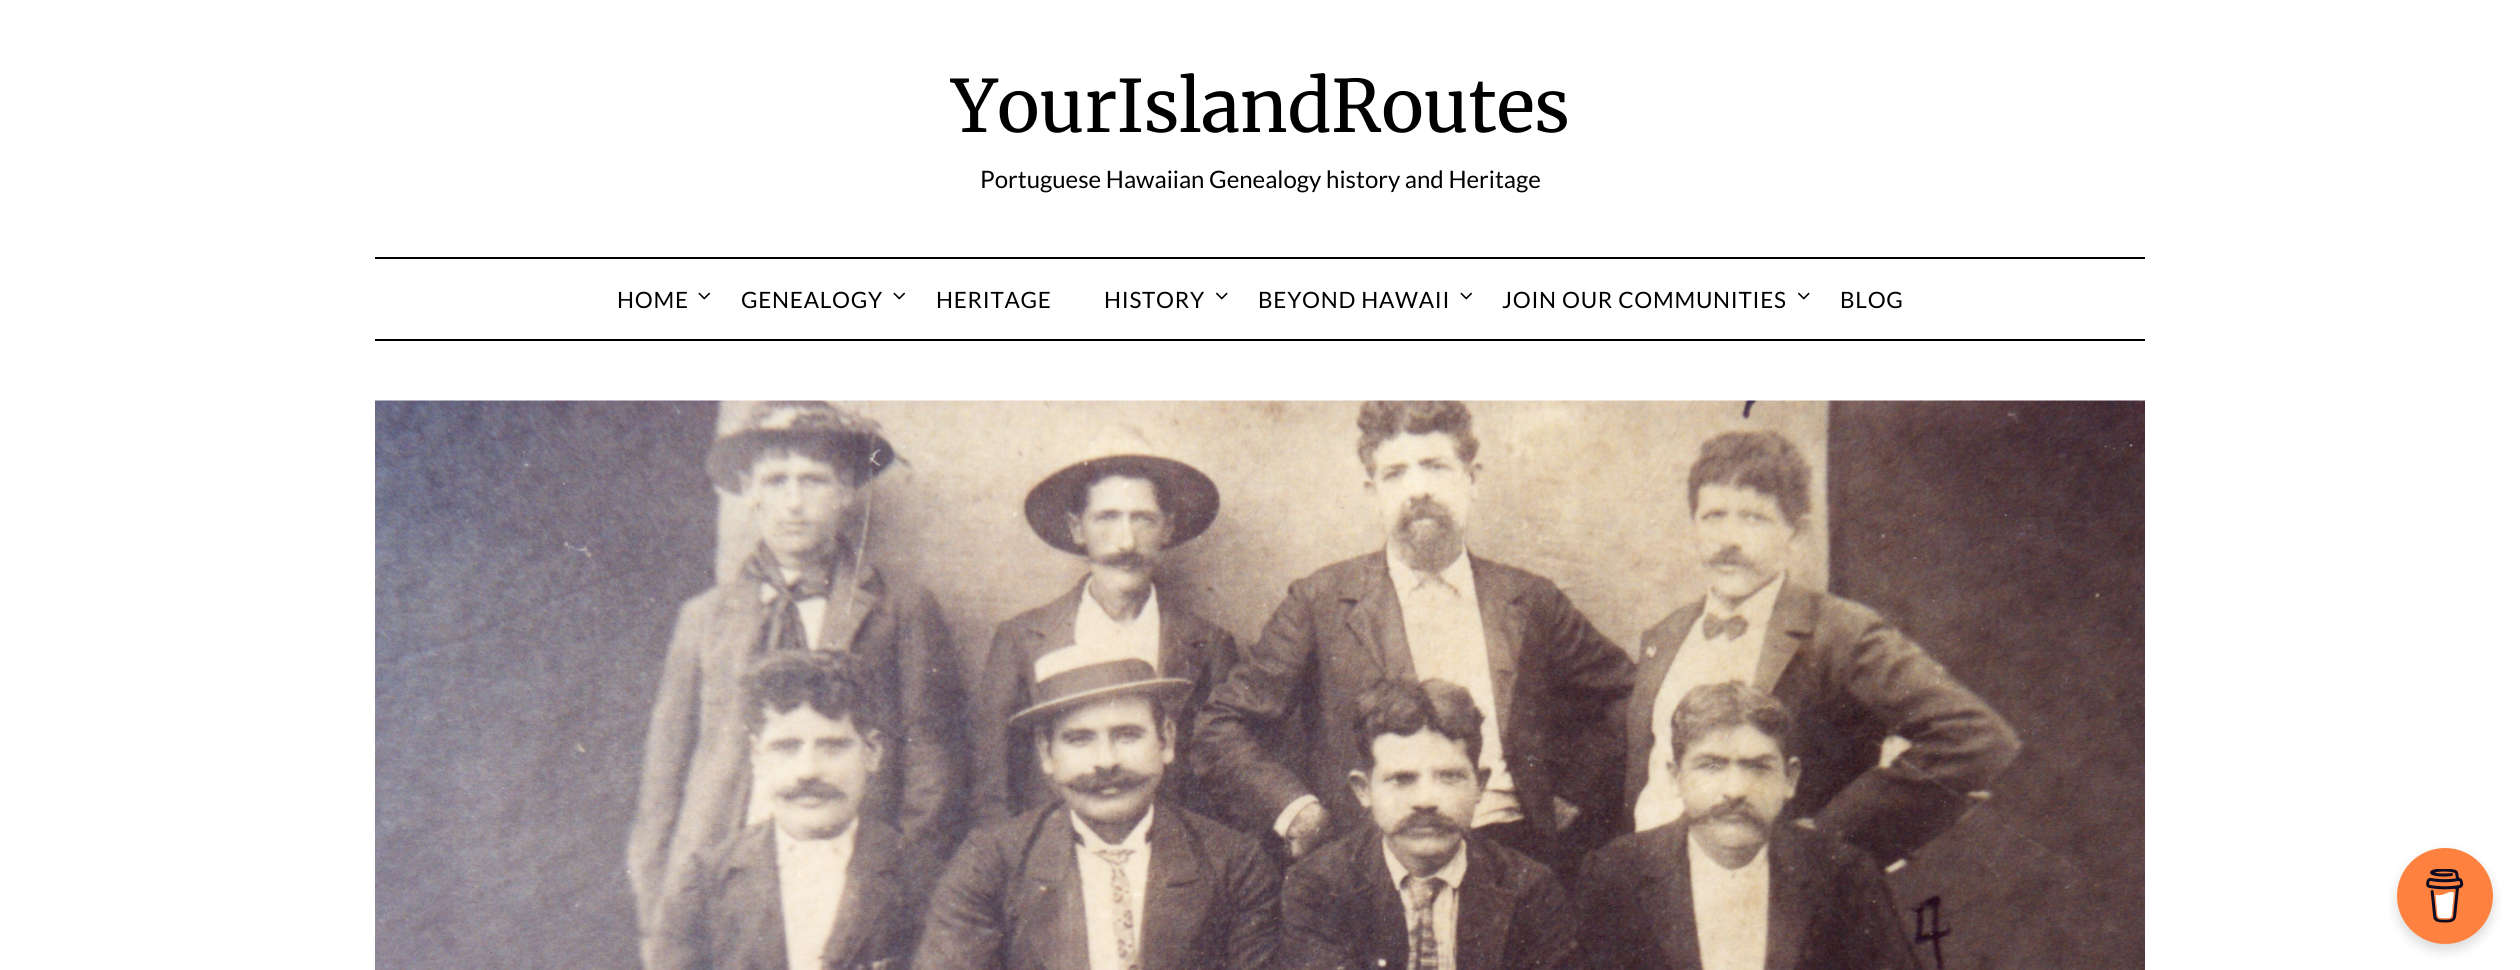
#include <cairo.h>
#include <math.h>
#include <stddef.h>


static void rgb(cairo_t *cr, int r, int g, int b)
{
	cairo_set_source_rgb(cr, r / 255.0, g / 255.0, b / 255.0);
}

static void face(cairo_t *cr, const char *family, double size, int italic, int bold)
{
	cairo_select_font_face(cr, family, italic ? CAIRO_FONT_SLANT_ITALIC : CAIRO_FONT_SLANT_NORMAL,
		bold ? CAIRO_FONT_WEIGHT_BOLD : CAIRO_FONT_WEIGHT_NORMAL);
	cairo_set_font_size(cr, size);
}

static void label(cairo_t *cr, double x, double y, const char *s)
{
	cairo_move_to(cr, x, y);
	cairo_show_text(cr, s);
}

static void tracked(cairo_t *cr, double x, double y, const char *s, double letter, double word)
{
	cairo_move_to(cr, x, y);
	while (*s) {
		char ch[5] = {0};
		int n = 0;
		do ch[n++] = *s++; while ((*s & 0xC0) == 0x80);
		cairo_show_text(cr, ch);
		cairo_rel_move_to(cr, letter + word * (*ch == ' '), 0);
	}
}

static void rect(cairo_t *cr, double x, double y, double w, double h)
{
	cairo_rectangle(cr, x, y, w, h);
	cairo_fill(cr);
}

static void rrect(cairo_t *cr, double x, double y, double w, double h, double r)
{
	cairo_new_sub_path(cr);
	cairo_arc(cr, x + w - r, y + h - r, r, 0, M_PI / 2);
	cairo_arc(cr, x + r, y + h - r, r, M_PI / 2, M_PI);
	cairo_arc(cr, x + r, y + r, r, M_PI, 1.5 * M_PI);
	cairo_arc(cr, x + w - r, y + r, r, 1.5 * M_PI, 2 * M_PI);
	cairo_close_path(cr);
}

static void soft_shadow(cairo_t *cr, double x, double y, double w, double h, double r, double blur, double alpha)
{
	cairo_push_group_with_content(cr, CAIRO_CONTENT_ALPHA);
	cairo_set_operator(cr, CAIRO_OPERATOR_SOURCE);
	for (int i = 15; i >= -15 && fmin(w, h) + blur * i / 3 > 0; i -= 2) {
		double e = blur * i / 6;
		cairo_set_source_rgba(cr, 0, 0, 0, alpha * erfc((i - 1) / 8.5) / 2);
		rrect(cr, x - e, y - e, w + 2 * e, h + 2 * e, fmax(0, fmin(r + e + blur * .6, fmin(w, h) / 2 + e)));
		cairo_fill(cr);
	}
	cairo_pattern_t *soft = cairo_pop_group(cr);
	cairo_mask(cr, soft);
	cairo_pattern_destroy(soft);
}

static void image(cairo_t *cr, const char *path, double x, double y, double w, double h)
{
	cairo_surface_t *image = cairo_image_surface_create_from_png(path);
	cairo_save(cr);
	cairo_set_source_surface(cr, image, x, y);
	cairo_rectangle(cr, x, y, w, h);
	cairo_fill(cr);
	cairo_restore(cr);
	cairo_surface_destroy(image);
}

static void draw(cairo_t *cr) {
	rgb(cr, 255, 255, 255);
	cairo_paint(cr);
	face(cr, "Merriweather", 72, 0, 0);
	rgb(cr, 0, 0, 0);
	label(cr, 951, 132, "YourIslandRoutes");
	face(cr, "Lato", 24, 0, 0);
	label(cr, 980, 188, "Portuguese Hawaiian Genealogy history and Heritage");
	rect(cr, 375, 257, 1770, 2);
	rect(cr, 375, 339, 1770, 2);
	face(cr, "Lato", 22.5, 0, 0);
	tracked(cr, 617, 308, "HOME", 0.75, 0);
	image(cr, "image0.png", 698, 292, 13, 8);
	tracked(cr, 741, 308, "GENEALOGY", 0.75, 0);
	image(cr, "image0.png", 893, 292, 13, 8);
	tracked(cr, 936, 308, "HERITAGE", 0.75, 0);
	tracked(cr, 1104, 308, "HISTORY", 0.75, 0);
	image(cr, "image1.png", 1215, 292, 13, 8);
	tracked(cr, 1258, 308, "BEYOND HAWAII", 0.75, 0);
	image(cr, "image0.png", 1460, 292, 13, 8);
	tracked(cr, 1502, 308, "JOIN OUR COMMUNITIES", 0.75, 0);
	image(cr, "image1.png", 1797, 292, 13, 8);
	tracked(cr, 1840, 308, "BLOG", 0.75, 0);
	image(cr, "image2.png", 375, 400, 1770, 570);
	rgb(cr, 0, 0, 0);
	soft_shadow(cr, 2397, 854, 96, 96, 48, 6, 0.15);
	rgb(cr, 255, 129, 63);
	cairo_arc(cr, 2445, 896, 48, 0, 2 * M_PI);
	cairo_fill(cr);
	image(cr, "image3.png", 2426, 869, 38, 54);
}

int main(void) {
	cairo_surface_t *surface = cairo_image_surface_create(CAIRO_FORMAT_RGB24, 2520, 970);
	cairo_t *cr = cairo_create(surface);
	cairo_font_options_t *options = cairo_font_options_create();
	cairo_font_options_set_hint_metrics(options, CAIRO_HINT_METRICS_OFF);
	cairo_font_options_set_hint_style(options, CAIRO_HINT_STYLE_NONE);
	cairo_set_font_options(cr, options);
	cairo_set_miter_limit(cr, 4);
	draw(cr);
	cairo_surface_write_to_png(surface, "render.png");
	cairo_font_options_destroy(options);
	cairo_destroy(cr);
	cairo_surface_destroy(surface);
	return 0;
}
